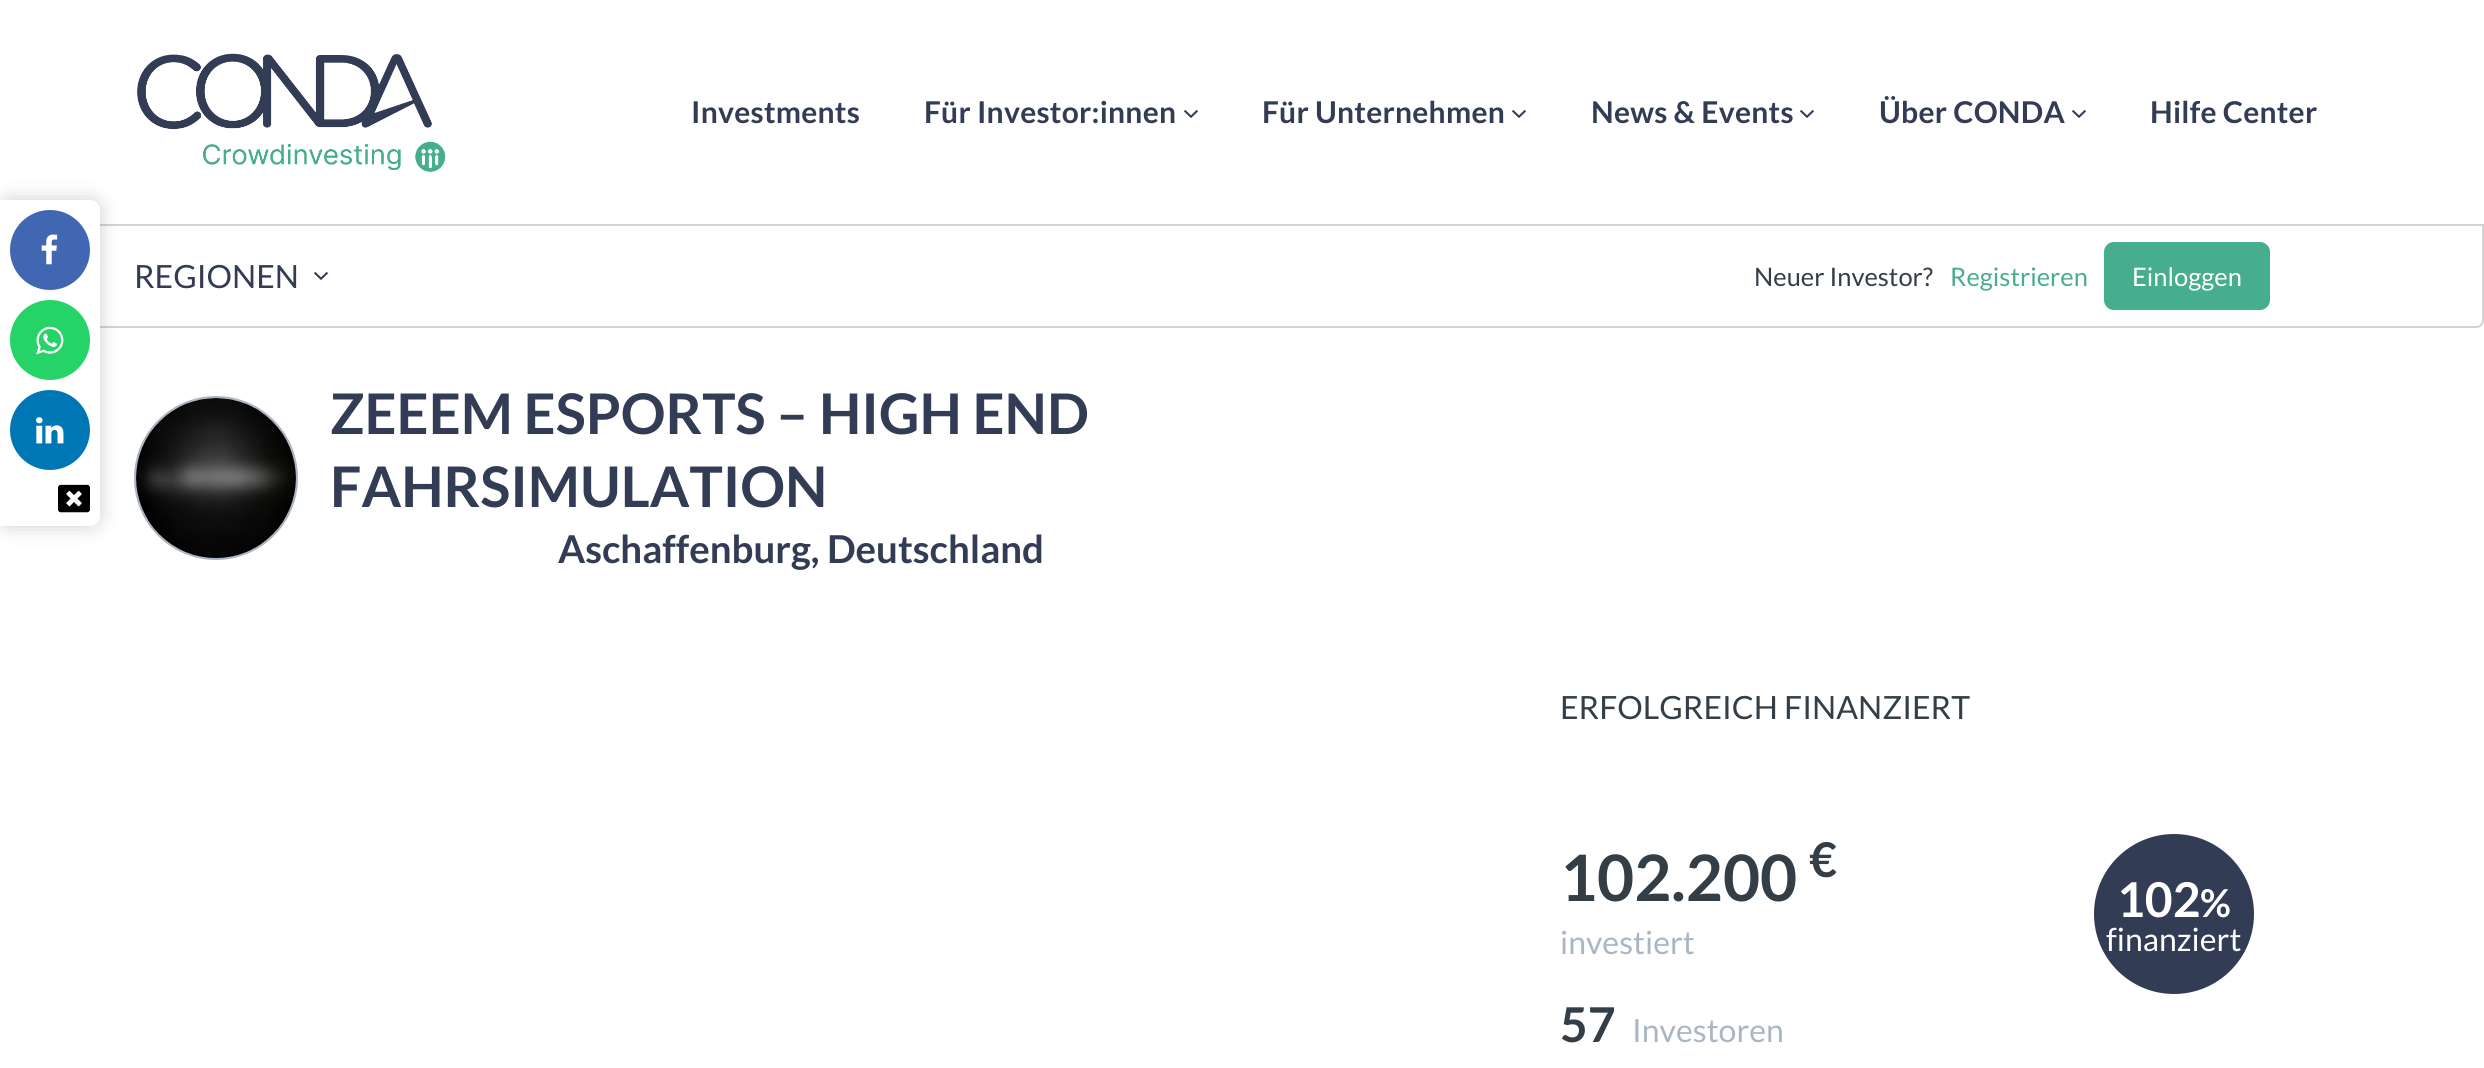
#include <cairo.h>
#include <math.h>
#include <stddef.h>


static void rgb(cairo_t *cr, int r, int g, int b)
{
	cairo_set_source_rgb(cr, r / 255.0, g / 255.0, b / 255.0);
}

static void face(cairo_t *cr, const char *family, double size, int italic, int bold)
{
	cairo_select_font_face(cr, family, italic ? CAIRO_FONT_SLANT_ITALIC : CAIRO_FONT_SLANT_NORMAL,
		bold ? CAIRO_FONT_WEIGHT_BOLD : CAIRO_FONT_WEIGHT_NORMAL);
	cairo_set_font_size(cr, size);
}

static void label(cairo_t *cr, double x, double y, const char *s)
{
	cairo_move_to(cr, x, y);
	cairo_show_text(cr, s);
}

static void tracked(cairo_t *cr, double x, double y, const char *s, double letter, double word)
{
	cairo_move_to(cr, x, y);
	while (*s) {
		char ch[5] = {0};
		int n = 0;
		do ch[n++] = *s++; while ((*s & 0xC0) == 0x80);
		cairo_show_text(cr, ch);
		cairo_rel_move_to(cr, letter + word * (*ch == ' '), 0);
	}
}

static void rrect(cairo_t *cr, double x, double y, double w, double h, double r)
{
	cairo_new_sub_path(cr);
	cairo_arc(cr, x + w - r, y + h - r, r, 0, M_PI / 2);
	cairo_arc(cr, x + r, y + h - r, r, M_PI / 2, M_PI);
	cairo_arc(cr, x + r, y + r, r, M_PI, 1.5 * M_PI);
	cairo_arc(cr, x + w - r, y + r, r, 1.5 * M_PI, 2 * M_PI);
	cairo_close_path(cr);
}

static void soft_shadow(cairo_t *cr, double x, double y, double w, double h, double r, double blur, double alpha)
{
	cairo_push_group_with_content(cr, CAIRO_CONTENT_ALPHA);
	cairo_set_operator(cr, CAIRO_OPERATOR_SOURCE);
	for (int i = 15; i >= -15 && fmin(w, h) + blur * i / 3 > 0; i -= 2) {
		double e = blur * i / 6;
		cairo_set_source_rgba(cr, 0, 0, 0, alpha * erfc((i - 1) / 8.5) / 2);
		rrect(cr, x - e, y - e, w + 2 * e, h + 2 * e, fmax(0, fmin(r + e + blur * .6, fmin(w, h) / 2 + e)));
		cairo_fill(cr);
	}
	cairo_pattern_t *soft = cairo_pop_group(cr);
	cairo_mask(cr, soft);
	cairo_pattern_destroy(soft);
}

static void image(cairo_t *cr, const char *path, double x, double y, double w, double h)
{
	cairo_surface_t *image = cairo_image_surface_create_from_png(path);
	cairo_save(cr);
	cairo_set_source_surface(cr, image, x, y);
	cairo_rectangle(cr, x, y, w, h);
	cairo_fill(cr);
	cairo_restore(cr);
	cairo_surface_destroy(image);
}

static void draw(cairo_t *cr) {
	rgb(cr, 255, 255, 255);
	cairo_paint(cr);
	cairo_new_path(cr);
	cairo_move_to(cr, 1, 225);
	cairo_line_to(cr, 2483, 225);
	cairo_line_to(cr, 2483, 320);
	cairo_curve_to(cr, 2483, 324, 2480, 327, 2476, 327);
	cairo_line_to(cr, 8, 327);
	cairo_curve_to(cr, 4, 327, 1, 324, 1, 320);
	cairo_close_path(cr);
	rgb(cr, 211, 211, 211);
	cairo_stroke(cr);
	rgb(cr, 0, 0, 0);
	soft_shadow(cr, 0, 200, 100, 326, 10, 10, 0.2);
	rgb(cr, 255, 255, 255);
	cairo_new_path(cr);
	cairo_move_to(cr, 0, 200);
	cairo_line_to(cr, 90, 200);
	cairo_curve_to(cr, 95.5, 200, 100, 204.5, 100, 210);
	cairo_line_to(cr, 100, 516);
	cairo_curve_to(cr, 100, 521.5, 95.5, 526, 90, 526);
	cairo_line_to(cr, 0, 526);
	cairo_close_path(cr);
	cairo_fill(cr);
	rgb(cr, 66, 103, 178);
	cairo_arc(cr, 50, 250, 40, 0, 2 * M_PI);
	cairo_fill(cr);
	image(cr, "image0.png", 41, 234, 17, 31);
	rgb(cr, 37, 211, 102);
	cairo_arc(cr, 50, 340, 40, 0, 2 * M_PI);
	cairo_fill(cr);
	image(cr, "image1.png", 36, 326, 28, 29);
	rgb(cr, 0, 119, 181);
	cairo_arc(cr, 50, 430, 40, 0, 2 * M_PI);
	cairo_fill(cr);
	image(cr, "image2.png", 36, 417, 28, 27);
	image(cr, "image3.png", 58, 484, 32, 29);
	image(cr, "image4.png", 137, 53, 309, 119);
	face(cr, "Lato", 30, 0, 1);
	rgb(cr, 51, 60, 85);
	tracked(cr, 691, 123, "Investments", 0.25, 0);
	tracked(cr, 924, 123, "Für Investor:innen", 0.25, 0);
	image(cr, "image5.png", 1184, 110, 14, 8);
	tracked(cr, 1262, 123, "Für Unternehmen", 0.25, 0);
	image(cr, "image5.png", 1512, 110, 14, 8);
	tracked(cr, 1591, 123, "News & Events", 0.25, 0);
	image(cr, "image5.png", 1800, 110, 14, 8);
	tracked(cr, 1879, 123, "Über CONDA", 0.25, 0);
	image(cr, "image5.png", 2072, 110, 14, 8);
	tracked(cr, 2150, 123, "Hilfe Center", 0.25, 0);
	face(cr, "Lato", 32, 0, 0);
	label(cr, 134, 288, "REGIONEN");
	image(cr, "image5.png", 314, 272, 14, 8);
	face(cr, "Lato", 25.5, 0, 0);
	rgb(cr, 52, 62, 71);
	label(cr, 1754, 286, "Neuer Investor?");
	rgb(cr, 70, 173, 141);
	label(cr, 1950, 286, "Registrieren");
	rrect(cr, 2104, 242, 166, 68, 10);
	cairo_fill(cr);
	rgb(cr, 255, 255, 255);
	label(cr, 2132, 286, "Einloggen");
	cairo_new_path(cr);
	cairo_arc(cr, 216, 478, 81, 0, 2 * M_PI);
	rgb(cr, 170, 182, 195);
	cairo_stroke(cr);
	image(cr, "image6.png", 136, 398, 160, 160);
	face(cr, "Lato", 56, 0, 1);
	rgb(cr, 51, 60, 85);
	label(cr, 330, 434, "ZEEEM ESPORTS – HIGH END");
	label(cr, 330, 507, "FAHRSIMULATION");
	face(cr, "Lato", 38.4, 0, 1);
	label(cr, 558, 563, "Aschaffenburg, Deutschland");
	face(cr, "Lato", 32, 0, 0);
	rgb(cr, 52, 62, 71);
	label(cr, 1560, 719, "ERFOLGREICH FINANZIERT");
	face(cr, "Lato", 64, 0, 1);
	label(cr, 1560, 901, "102.200");
	face(cr, "Lato", 48, 0, 1);
	label(cr, 1809, 877, "€");
	face(cr, "Lato", 32, 0, 0);
	rgb(cr, 170, 182, 195);
	label(cr, 1560, 954, "investiert");
	face(cr, "Lato", 48, 0, 1);
	rgb(cr, 52, 62, 71);
	label(cr, 1560, 1042, "57");
	face(cr, "Lato", 32, 0, 0);
	rgb(cr, 170, 182, 195);
	label(cr, 1632, 1042, "Investoren");
	rgb(cr, 51, 60, 85);
	cairo_new_path(cr);
	cairo_arc(cr, 2174, 914, 80, 0, 2 * M_PI);
	cairo_fill(cr);
	face(cr, "Lato", 48, 0, 1);
	rgb(cr, 255, 255, 255);
	label(cr, 2117, 917, "102");
	face(cr, "Lato", 38.4, 0, 1);
	label(cr, 2200, 917, "%");
	face(cr, "Lato", 32, 0, 0);
	label(cr, 2106, 951, "finanziert");
}

int main(void) {
	cairo_surface_t *surface = cairo_image_surface_create(CAIRO_FORMAT_RGB24, 2484, 1068);
	cairo_t *cr = cairo_create(surface);
	cairo_font_options_t *options = cairo_font_options_create();
	cairo_font_options_set_hint_metrics(options, CAIRO_HINT_METRICS_OFF);
	cairo_font_options_set_hint_style(options, CAIRO_HINT_STYLE_NONE);
	cairo_set_font_options(cr, options);
	cairo_set_miter_limit(cr, 4);
	draw(cr);
	cairo_surface_write_to_png(surface, "render.png");
	cairo_font_options_destroy(options);
	cairo_destroy(cr);
	cairo_surface_destroy(surface);
	return 0;
}
